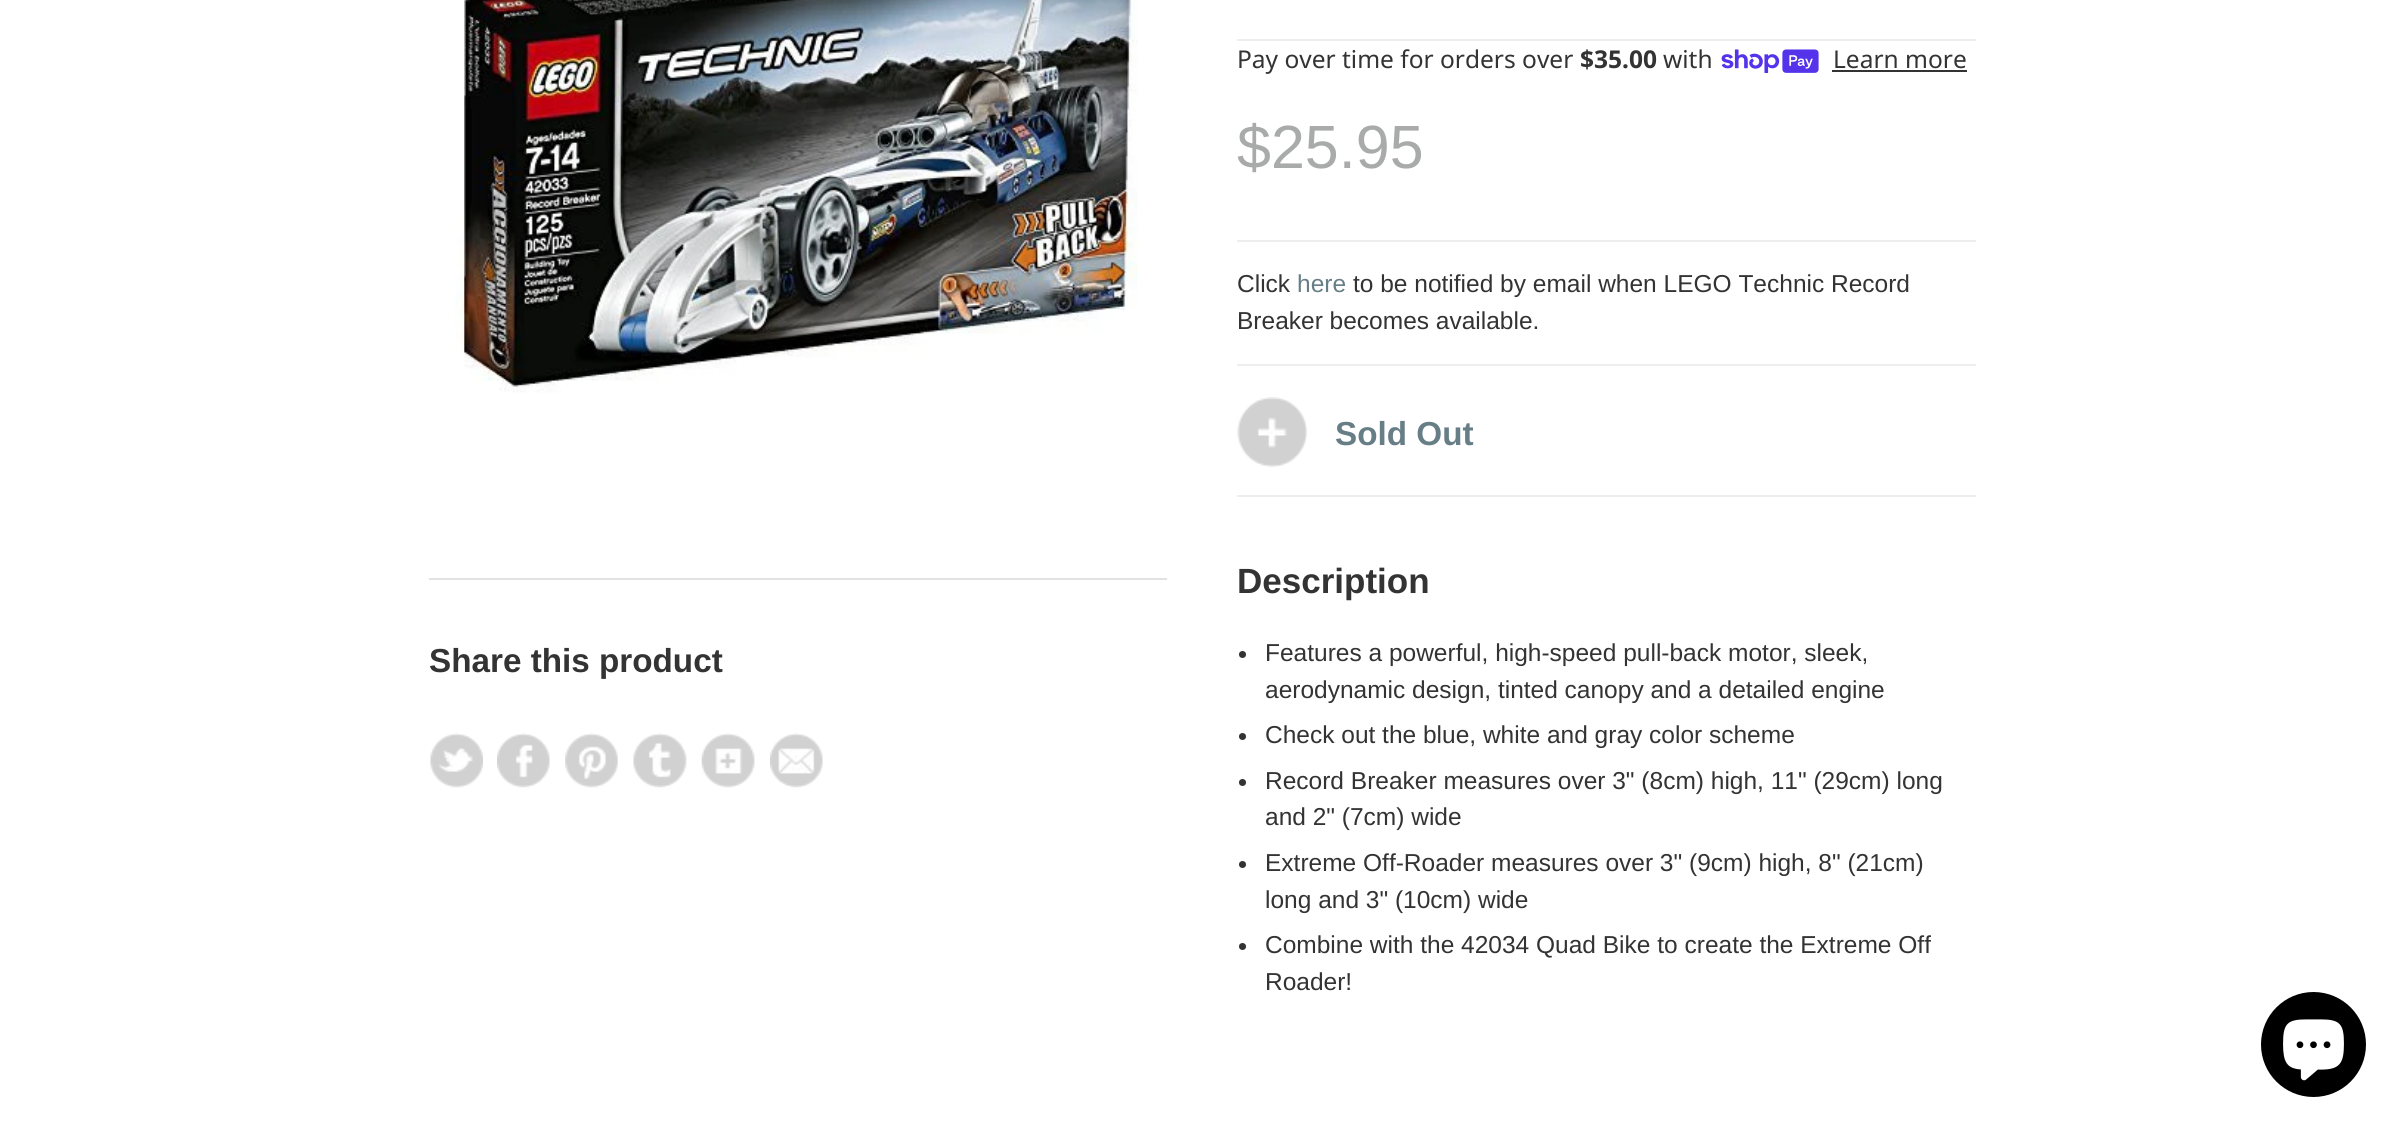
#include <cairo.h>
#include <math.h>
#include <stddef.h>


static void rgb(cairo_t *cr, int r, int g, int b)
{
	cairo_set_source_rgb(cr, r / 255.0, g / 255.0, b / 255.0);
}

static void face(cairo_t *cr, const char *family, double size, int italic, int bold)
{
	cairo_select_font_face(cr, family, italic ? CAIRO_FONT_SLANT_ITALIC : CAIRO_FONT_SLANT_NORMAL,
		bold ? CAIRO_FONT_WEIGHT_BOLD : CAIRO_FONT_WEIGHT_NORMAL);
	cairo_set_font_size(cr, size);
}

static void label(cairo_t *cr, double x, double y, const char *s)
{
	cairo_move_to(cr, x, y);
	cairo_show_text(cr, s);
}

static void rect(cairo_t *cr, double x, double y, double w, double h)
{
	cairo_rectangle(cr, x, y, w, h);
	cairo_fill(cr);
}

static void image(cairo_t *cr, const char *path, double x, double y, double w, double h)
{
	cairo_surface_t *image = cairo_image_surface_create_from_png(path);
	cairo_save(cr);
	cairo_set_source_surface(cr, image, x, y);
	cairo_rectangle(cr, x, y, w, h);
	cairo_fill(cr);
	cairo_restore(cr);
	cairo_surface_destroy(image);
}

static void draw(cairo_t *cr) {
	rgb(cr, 255, 255, 255);
	cairo_paint(cr);
	image(cr, "image0.png", 455, 0, 683, 393);
	rgb(cr, 226, 226, 226);
	rect(cr, 429, 578, 738, 2);
	face(cr, "Liberation Sans", 33.25, 0, 1);
	rgb(cr, 51, 51, 51);
	label(cr, 429, 672, "Share this product");
	image(cr, "image1.png", 430, 733, 53, 55);
	image(cr, "image2.png", 497, 733, 53, 55);
	image(cr, "image3.png", 565, 733, 53, 55);
	image(cr, "image4.png", 633, 733, 54, 55);
	image(cr, "image5.png", 701, 733, 54, 55);
	image(cr, "image6.png", 770, 733, 53, 55);
	rgb(cr, 238, 238, 238);
	rect(cr, 1237, 39, 739, 2);
	face(cr, "Noto Sans", 24.5, 0, 0);
	rgb(cr, 51, 51, 51);
	label(cr, 1237, 68, "Pay over time for orders over");
	face(cr, "Noto Sans", 24.5, 0, 1);
	label(cr, 1580, 68, "$35.00");
	face(cr, "Noto Sans", 24.5, 0, 0);
	label(cr, 1663, 68, "with");
	image(cr, "image7.png", 1721, 49, 98, 24);
	label(cr, 1833, 68, "Learn more");
	rect(cr, 1832, 70, 135, 2);
	rgb(cr, 238, 238, 238);
	rect(cr, 1237, 240, 739, 2);
	face(cr, "Liberation Sans", 61, 0, 0);
	rgb(cr, 169, 170, 170);
	label(cr, 1237, 168, "$25.95");
	rgb(cr, 238, 238, 238);
	rect(cr, 1237, 364, 739, 2);
	face(cr, "Liberation Sans", 24.5, 0, 0);
	rgb(cr, 51, 51, 51);
	label(cr, 1237, 292, "Click");
	rgb(cr, 103, 126, 135);
	label(cr, 1297, 292, "here");
	rgb(cr, 51, 51, 51);
	label(cr, 1353, 292, "to be notified by email when LEGO Technic Record");
	label(cr, 1237, 329, "Breaker becomes available.");
	rgb(cr, 238, 238, 238);
	rect(cr, 1237, 495, 739, 2);
	image(cr, "image8.png", 1237, 397, 70, 70);
	face(cr, "Liberation Sans", 33.25, 0, 1);
	rgb(cr, 103, 126, 135);
	label(cr, 1335, 445, "Sold Out");
	face(cr, "Liberation Sans", 35, 0, 1);
	rgb(cr, 51, 51, 51);
	label(cr, 1237, 593, "Description");
	cairo_new_path(cr);
	cairo_arc(cr, 1242.5, 654.5, 3.5, 0, 2 * M_PI);
	cairo_fill(cr);
	face(cr, "Liberation Sans", 24.5, 0, 0);
	label(cr, 1265, 661, "Features a powerful, high-speed pull-back motor, sleek,");
	label(cr, 1265, 698, "aerodynamic design, tinted canopy and a detailed engine");
	cairo_new_path(cr);
	cairo_arc(cr, 1242.5, 736.5, 3.5, 0, 2 * M_PI);
	cairo_fill(cr);
	label(cr, 1265, 743, "Check out the blue, white and gray color scheme");
	cairo_new_path(cr);
	cairo_arc(cr, 1242.5, 782.5, 3.5, 0, 2 * M_PI);
	cairo_fill(cr);
	label(cr, 1265, 789, "Record Breaker measures over 3\" (8cm) high, 11\" (29cm) long");
	label(cr, 1265, 825, "and 2\" (7cm) wide");
	cairo_new_path(cr);
	cairo_arc(cr, 1242.5, 864.5, 3.5, 0, 2 * M_PI);
	cairo_fill(cr);
	label(cr, 1265, 871, "Extreme Off-Roader measures over 3\" (9cm) high, 8\" (21cm)");
	label(cr, 1265, 908, "long and 3\" (10cm) wide");
	cairo_new_path(cr);
	cairo_arc(cr, 1242.5, 946.5, 3.5, 0, 2 * M_PI);
	cairo_fill(cr);
	label(cr, 1265, 953, "Combine with the 42034 Quad Bike to create the Extreme Off");
	label(cr, 1265, 990, "Roader!");
	rgb(cr, 0, 0, 0);
	cairo_new_path(cr);
	cairo_arc(cr, 2313.5, 1044.5, 52.5, 0, 2 * M_PI);
	cairo_fill(cr);
	image(cr, "image9.png", 2283, 1019, 61, 62);
}

int main(void) {
	cairo_surface_t *surface = cairo_image_surface_create(CAIRO_FORMAT_RGB24, 2403, 1134);
	cairo_t *cr = cairo_create(surface);
	cairo_font_options_t *options = cairo_font_options_create();
	cairo_font_options_set_hint_metrics(options, CAIRO_HINT_METRICS_OFF);
	cairo_font_options_set_hint_style(options, CAIRO_HINT_STYLE_NONE);
	cairo_set_font_options(cr, options);
	cairo_set_miter_limit(cr, 4);
	draw(cr);
	cairo_surface_write_to_png(surface, "render.png");
	cairo_font_options_destroy(options);
	cairo_destroy(cr);
	cairo_surface_destroy(surface);
	return 0;
}
